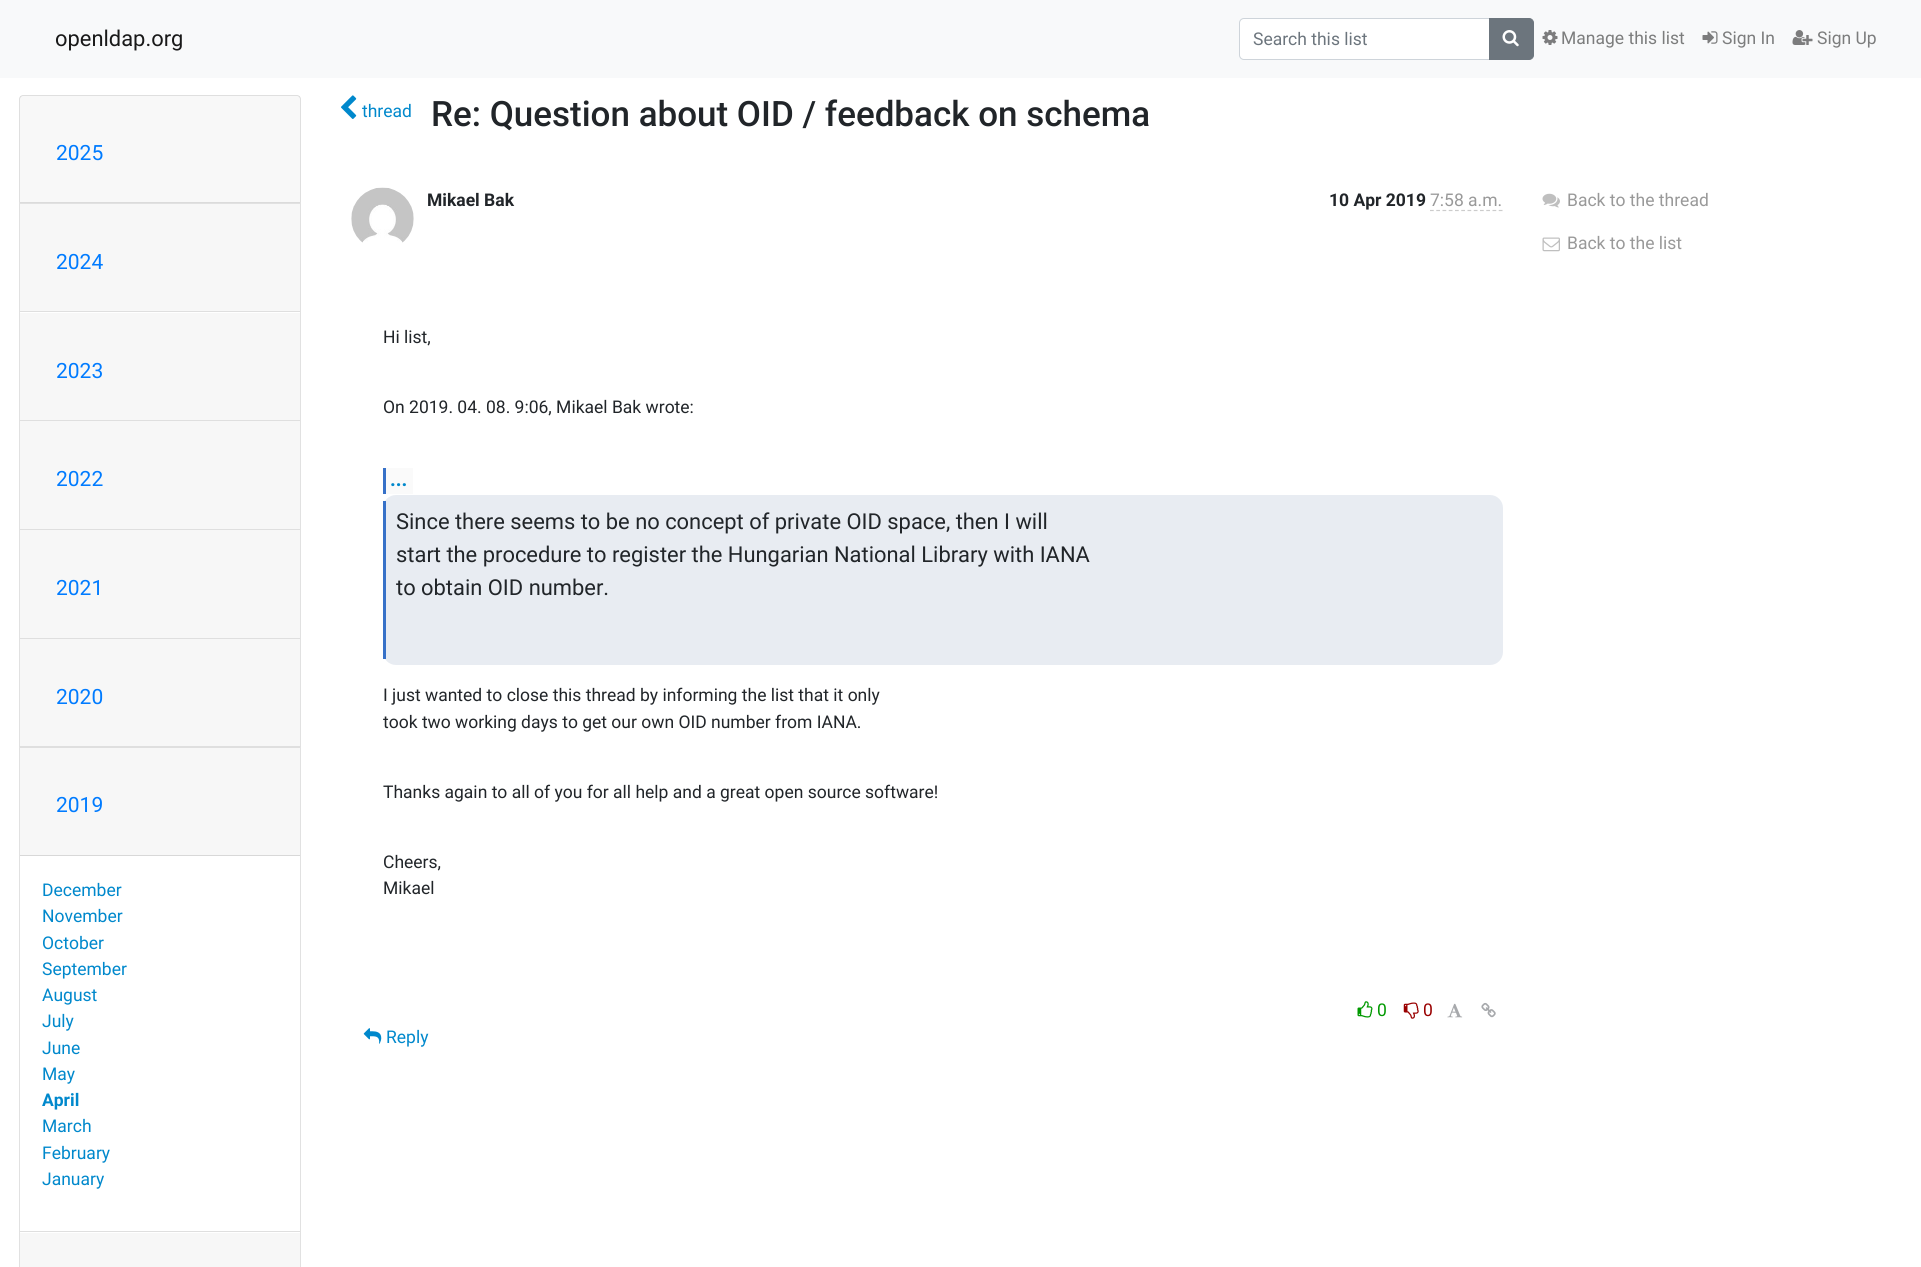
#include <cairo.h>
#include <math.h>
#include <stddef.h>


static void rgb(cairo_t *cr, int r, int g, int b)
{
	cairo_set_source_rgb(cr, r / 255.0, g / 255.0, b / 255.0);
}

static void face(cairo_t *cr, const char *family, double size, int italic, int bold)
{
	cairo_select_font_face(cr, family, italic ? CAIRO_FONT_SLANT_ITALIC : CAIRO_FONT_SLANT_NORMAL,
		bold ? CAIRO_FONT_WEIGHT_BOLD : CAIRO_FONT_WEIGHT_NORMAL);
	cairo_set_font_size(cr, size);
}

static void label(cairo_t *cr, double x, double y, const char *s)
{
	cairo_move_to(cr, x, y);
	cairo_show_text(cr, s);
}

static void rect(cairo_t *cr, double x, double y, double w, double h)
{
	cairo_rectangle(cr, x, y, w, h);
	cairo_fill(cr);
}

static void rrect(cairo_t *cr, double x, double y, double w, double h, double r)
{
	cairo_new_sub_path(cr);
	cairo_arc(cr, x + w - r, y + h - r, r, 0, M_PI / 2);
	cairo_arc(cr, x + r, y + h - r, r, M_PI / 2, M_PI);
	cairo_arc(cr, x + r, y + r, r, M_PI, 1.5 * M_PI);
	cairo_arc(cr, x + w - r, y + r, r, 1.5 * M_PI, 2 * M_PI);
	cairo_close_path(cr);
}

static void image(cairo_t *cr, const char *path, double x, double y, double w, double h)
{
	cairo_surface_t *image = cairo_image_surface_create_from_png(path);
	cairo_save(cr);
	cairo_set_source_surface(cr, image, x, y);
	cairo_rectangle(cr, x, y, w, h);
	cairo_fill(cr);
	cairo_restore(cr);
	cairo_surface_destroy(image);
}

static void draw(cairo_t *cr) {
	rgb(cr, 255, 255, 255);
	cairo_paint(cr);
	rgb(cr, 248, 249, 250);
	rect(cr, 0, 0, 1921, 78);
	face(cr, "Roboto", 21.9, 0, 0);
	rgb(cr, 25, 25, 25);
	label(cr, 55, 46, "openldap.org");
	rgb(cr, 255, 255, 255);
	cairo_new_path(cr);
	cairo_move_to(cr, 1243, 19);
	cairo_line_to(cr, 1489, 19);
	cairo_line_to(cr, 1489, 59);
	cairo_line_to(cr, 1243, 59);
	cairo_curve_to(cr, 1241.5, 59, 1240, 57.5, 1240, 56);
	cairo_line_to(cr, 1240, 22);
	cairo_curve_to(cr, 1240, 20.5, 1241.5, 19, 1243, 19);
	cairo_close_path(cr);
	cairo_fill(cr);
	cairo_new_path(cr);
	cairo_move_to(cr, 1244, 18.5);
	cairo_line_to(cr, 1489.5, 18.5);
	cairo_line_to(cr, 1489.5, 59.5);
	cairo_line_to(cr, 1244, 59.5);
	cairo_curve_to(cr, 1241.5, 59.5, 1239.5, 57.5, 1239.5, 55);
	cairo_line_to(cr, 1239.5, 23);
	cairo_curve_to(cr, 1239.5, 20.5, 1241.5, 18.5, 1244, 18.5);
	cairo_close_path(cr);
	rgb(cr, 206, 212, 218);
	cairo_set_line_width(cr, 1);
	cairo_stroke(cr);
	face(cr, "Roboto", 17.5, 0, 0);
	rgb(cr, 108, 117, 125);
	label(cr, 1253, 45, "Search this list");
	cairo_new_path(cr);
	cairo_move_to(cr, 1489.5, 18.5);
	cairo_line_to(cr, 1529, 18.5);
	cairo_curve_to(cr, 1531.5, 18.5, 1533.5, 20.5, 1533.5, 23);
	cairo_line_to(cr, 1533.5, 55);
	cairo_curve_to(cr, 1533.5, 57.5, 1531.5, 59.5, 1529, 59.5);
	cairo_line_to(cr, 1489.5, 59.5);
	cairo_close_path(cr);
	cairo_fill_preserve(cr);
	cairo_stroke(cr);
	image(cr, "image0.png", 1502, 30, 17, 17);
	image(cr, "image1.png", 1542, 30, 16, 15);
	rgb(cr, 124, 125, 125);
	label(cr, 1561, 44, "Manage this list");
	image(cr, "image2.png", 1702, 31, 16, 13);
	label(cr, 1722, 44, "Sign In");
	image(cr, "image3.png", 1792, 30, 21, 15);
	label(cr, 1817, 44, "Sign Up");
	rgb(cr, 223, 223, 223);
	cairo_set_fill_rule(cr, CAIRO_FILL_RULE_EVEN_ODD);
	cairo_new_path(cr);
	cairo_move_to(cr, 23, 95);
	cairo_line_to(cr, 297, 95);
	cairo_curve_to(cr, 299, 95, 301, 97, 301, 99);
	cairo_line_to(cr, 301, 202);
	cairo_line_to(cr, 19, 202);
	cairo_line_to(cr, 19, 99);
	cairo_curve_to(cr, 19, 97, 21, 95, 23, 95);
	cairo_close_path(cr);
	cairo_move_to(cr, 23, 96);
	cairo_line_to(cr, 297, 96);
	cairo_curve_to(cr, 299, 96, 300, 98, 300, 99);
	cairo_line_to(cr, 300, 202);
	cairo_line_to(cr, 20, 202);
	cairo_line_to(cr, 20, 99);
	cairo_curve_to(cr, 20, 98, 21, 96, 23, 96);
	cairo_close_path(cr);
	cairo_fill(cr);
	cairo_set_source_rgba(cr, 0, 0, 0, 0.03);
	rect(cr, 20, 96, 280, 107);
	face(cr, "Roboto", 21, 0, 0);
	rgb(cr, 0, 123, 255);
	label(cr, 56, 160, "2025");
	cairo_set_source_rgba(cr, 0, 0, 0, 0.12);
	cairo_set_fill_rule(cr, CAIRO_FILL_RULE_WINDING);
	cairo_new_path(cr);
	cairo_move_to(cr, 19, 202);
	cairo_line_to(cr, 301, 202);
	cairo_line_to(cr, 300, 204);
	cairo_line_to(cr, 20, 204);
	cairo_close_path(cr);
	cairo_fill(cr);
	cairo_new_path(cr);
	cairo_move_to(cr, 301, 202);
	cairo_line_to(cr, 301, 311);
	cairo_line_to(cr, 300, 311);
	cairo_line_to(cr, 300, 204);
	cairo_close_path(cr);
	cairo_fill(cr);
	cairo_new_path(cr);
	cairo_move_to(cr, 19, 311);
	cairo_line_to(cr, 19, 202);
	cairo_line_to(cr, 20, 204);
	cairo_line_to(cr, 20, 311);
	cairo_close_path(cr);
	cairo_fill(cr);
	rgb(cr, 247, 247, 247);
	rect(cr, 20, 204, 280, 107);
	rgb(cr, 0, 123, 255);
	label(cr, 56, 269, "2024");
	rgb(cr, 223, 223, 223);
	cairo_new_path(cr);
	cairo_move_to(cr, 19, 311);
	cairo_line_to(cr, 301, 311);
	cairo_line_to(cr, 300, 312);
	cairo_line_to(cr, 20, 312);
	cairo_close_path(cr);
	cairo_fill(cr);
	cairo_set_source_rgba(cr, 0, 0, 0, 0.12);
	cairo_new_path(cr);
	cairo_move_to(cr, 301, 311);
	cairo_line_to(cr, 301, 420);
	cairo_line_to(cr, 300, 420);
	cairo_line_to(cr, 300, 312);
	cairo_close_path(cr);
	cairo_fill(cr);
	cairo_new_path(cr);
	cairo_move_to(cr, 19, 420);
	cairo_line_to(cr, 19, 311);
	cairo_line_to(cr, 20, 312);
	cairo_line_to(cr, 20, 420);
	cairo_close_path(cr);
	cairo_fill(cr);
	rgb(cr, 247, 247, 247);
	rect(cr, 20, 313, 280, 107);
	rgb(cr, 0, 123, 255);
	label(cr, 56, 378, "2023");
	rgb(cr, 223, 223, 223);
	cairo_new_path(cr);
	cairo_move_to(cr, 19, 420);
	cairo_line_to(cr, 301, 420);
	cairo_line_to(cr, 300, 421);
	cairo_line_to(cr, 20, 421);
	cairo_close_path(cr);
	cairo_fill(cr);
	cairo_set_source_rgba(cr, 0, 0, 0, 0.12);
	cairo_new_path(cr);
	cairo_move_to(cr, 301, 420);
	cairo_line_to(cr, 301, 529);
	cairo_line_to(cr, 300, 529);
	cairo_line_to(cr, 300, 421);
	cairo_close_path(cr);
	cairo_fill(cr);
	cairo_new_path(cr);
	cairo_move_to(cr, 19, 529);
	cairo_line_to(cr, 19, 420);
	cairo_line_to(cr, 20, 421);
	cairo_line_to(cr, 20, 529);
	cairo_close_path(cr);
	cairo_fill(cr);
	rgb(cr, 247, 247, 247);
	rect(cr, 20, 421, 280, 108);
	rgb(cr, 0, 123, 255);
	label(cr, 56, 486, "2022");
	rgb(cr, 223, 223, 223);
	cairo_new_path(cr);
	cairo_move_to(cr, 19, 529);
	cairo_line_to(cr, 301, 529);
	cairo_line_to(cr, 300, 530);
	cairo_line_to(cr, 20, 530);
	cairo_close_path(cr);
	cairo_fill(cr);
	cairo_set_source_rgba(cr, 0, 0, 0, 0.12);
	cairo_new_path(cr);
	cairo_move_to(cr, 301, 529);
	cairo_line_to(cr, 301, 638);
	cairo_line_to(cr, 300, 638);
	cairo_line_to(cr, 300, 530);
	cairo_close_path(cr);
	cairo_fill(cr);
	cairo_new_path(cr);
	cairo_move_to(cr, 19, 638);
	cairo_line_to(cr, 19, 529);
	cairo_line_to(cr, 20, 530);
	cairo_line_to(cr, 20, 638);
	cairo_close_path(cr);
	cairo_fill(cr);
	rgb(cr, 247, 247, 247);
	rect(cr, 20, 530, 280, 108);
	rgb(cr, 0, 123, 255);
	label(cr, 56, 595, "2021");
	rgb(cr, 223, 223, 223);
	cairo_new_path(cr);
	cairo_move_to(cr, 19, 638);
	cairo_line_to(cr, 301, 638);
	cairo_line_to(cr, 300, 639);
	cairo_line_to(cr, 20, 639);
	cairo_close_path(cr);
	cairo_fill(cr);
	cairo_set_source_rgba(cr, 0, 0, 0, 0.12);
	cairo_new_path(cr);
	cairo_move_to(cr, 301, 638);
	cairo_line_to(cr, 301, 746);
	cairo_line_to(cr, 300, 746);
	cairo_line_to(cr, 300, 639);
	cairo_close_path(cr);
	cairo_fill(cr);
	cairo_new_path(cr);
	cairo_move_to(cr, 19, 746);
	cairo_line_to(cr, 19, 638);
	cairo_line_to(cr, 20, 639);
	cairo_line_to(cr, 20, 746);
	cairo_close_path(cr);
	cairo_fill(cr);
	rgb(cr, 247, 247, 247);
	rect(cr, 20, 639, 280, 107);
	rgb(cr, 0, 123, 255);
	label(cr, 56, 704, "2020");
	rgb(cr, 223, 223, 223);
	cairo_new_path(cr);
	cairo_move_to(cr, 19, 746);
	cairo_line_to(cr, 301, 746);
	cairo_line_to(cr, 300, 748);
	cairo_line_to(cr, 20, 748);
	cairo_close_path(cr);
	cairo_fill(cr);
	cairo_set_source_rgba(cr, 0, 0, 0, 0.12);
	cairo_new_path(cr);
	cairo_move_to(cr, 301, 746);
	cairo_line_to(cr, 301, 1231);
	cairo_line_to(cr, 300, 1231);
	cairo_line_to(cr, 300, 748);
	cairo_close_path(cr);
	cairo_fill(cr);
	cairo_new_path(cr);
	cairo_move_to(cr, 19, 1231);
	cairo_line_to(cr, 19, 746);
	cairo_line_to(cr, 20, 748);
	cairo_line_to(cr, 20, 1231);
	cairo_close_path(cr);
	cairo_fill(cr);
	rgb(cr, 247, 247, 247);
	rect(cr, 20, 748, 280, 107);
	rgb(cr, 216, 216, 216);
	rect(cr, 20, 855, 280, 1);
	rgb(cr, 0, 123, 255);
	label(cr, 56, 812, "2019");
	face(cr, "Roboto", 17.5, 0, 0);
	rgb(cr, 0, 136, 204);
	label(cr, 42, 896, "December");
	label(cr, 42, 922, "November");
	label(cr, 42, 949, "October");
	label(cr, 42, 975, "September");
	label(cr, 42, 1001, "August");
	label(cr, 42, 1027, "July");
	label(cr, 42, 1054, "June");
	label(cr, 42, 1080, "May");
	face(cr, "Roboto", 17.5, 0, 1);
	label(cr, 42, 1106, "April");
	face(cr, "Roboto", 17.5, 0, 0);
	label(cr, 42, 1132, "March");
	label(cr, 42, 1159, "February");
	label(cr, 42, 1185, "January");
	rgb(cr, 223, 223, 223);
	cairo_new_path(cr);
	cairo_move_to(cr, 19, 1231);
	cairo_line_to(cr, 301, 1231);
	cairo_line_to(cr, 300, 1232);
	cairo_line_to(cr, 20, 1232);
	cairo_close_path(cr);
	cairo_fill(cr);
	cairo_set_source_rgba(cr, 0, 0, 0, 0.12);
	cairo_new_path(cr);
	cairo_move_to(cr, 301, 1231);
	cairo_line_to(cr, 301, 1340);
	cairo_line_to(cr, 300, 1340);
	cairo_line_to(cr, 300, 1232);
	cairo_close_path(cr);
	cairo_fill(cr);
	cairo_new_path(cr);
	cairo_move_to(cr, 19, 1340);
	cairo_line_to(cr, 19, 1231);
	cairo_line_to(cr, 20, 1232);
	cairo_line_to(cr, 20, 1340);
	cairo_close_path(cr);
	cairo_fill(cr);
	rgb(cr, 247, 247, 247);
	rect(cr, 20, 1233, 280, 34);
	image(cr, "image4.png", 341, 95, 16, 24);
	rgb(cr, 0, 136, 204);
	label(cr, 362, 117, "thread");
	face(cr, "Roboto Medium", 35, 0, 0);
	rgb(cr, 33, 37, 41);
	label(cr, 431, 126, "Re: Question about OID / feedback on schema");
	image(cr, "image5.png", 351, 187, 63, 56);
	face(cr, "Roboto", 17.5, 0, 1);
	label(cr, 427, 206, "Mikael Bak");
	label(cr, 1329, 206, "10 Apr 2019");
	face(cr, "Roboto", 17.5, 0, 0);
	rgb(cr, 153, 153, 153);
	label(cr, 1430, 206, "7:58 a.m.");
	cairo_new_path(cr);
	cairo_move_to(cr, 1430, 210.5);
	cairo_line_to(cr, 1502.5, 210.5);
	rgb(cr, 204, 204, 204);
	cairo_set_line_width(cr, 1.2);
	cairo_set_dash(cr, (double[]){3.75, 2.5}, 2, 0);
	cairo_stroke(cr);
	rgb(cr, 33, 37, 41);
	label(cr, 383, 343, "Hi list,");
	label(cr, 383, 413, "On 2019. 04. 08. 9:06, Mikael Bak wrote:");
	rgb(cr, 250, 250, 250);
	rect(cr, 386, 468, 27, 26);
	face(cr, "Roboto", 20, 0, 1);
	rgb(cr, 0, 136, 204);
	label(cr, 390, 486, "...");
	rgb(cr, 55, 113, 200);
	rect(cr, 383, 468, 3, 26);
	rgb(cr, 232, 236, 242);
	rrect(cr, 383, 495, 1120, 170, 13);
	cairo_fill(cr);
	rgb(cr, 55, 113, 200);
	rect(cr, 383, 501, 3, 158);
	face(cr, "Roboto", 21.9, 0, 0);
	rgb(cr, 33, 37, 41);
	label(cr, 396, 529, "Since there seems to be no concept of private OID space, then I will");
	label(cr, 396, 562, "start the procedure to register the Hungarian National Library with IANA");
	label(cr, 396, 595, "to obtain OID number.");
	face(cr, "Roboto", 17.5, 0, 0);
	label(cr, 383, 701, "I just wanted to close this thread by informing the list that it only");
	label(cr, 383, 728, "took two working days to get our own OID number from IANA.");
	label(cr, 383, 798, "Thanks again to all of you for all help and a great open source software!");
	label(cr, 383, 868, "Cheers,");
	label(cr, 383, 894, "Mikael");
	image(cr, "image6.png", 1357, 1001, 16, 17);
	rgb(cr, 0, 153, 0);
	label(cr, 1377, 1016, "0");
	image(cr, "image7.png", 1403, 1002, 16, 17);
	rgb(cr, 153, 0, 0);
	label(cr, 1423, 1016, "0");
	image(cr, "image8.png", 1447, 1003, 16, 15);
	image(cr, "image9.png", 1481, 1002, 15, 16);
	image(cr, "image10.png", 363, 1028, 19, 16);
	rgb(cr, 0, 136, 204);
	label(cr, 386, 1043, "Reply");
	image(cr, "image11.png", 1542, 193, 18, 15);
	rgb(cr, 153, 153, 153);
	label(cr, 1567, 206, "Back to the thread");
	image(cr, "image12.png", 1542, 237, 18, 15);
	label(cr, 1567, 249, "Back to the list");
}

int main(void) {
	cairo_surface_t *surface = cairo_image_surface_create(CAIRO_FORMAT_RGB24, 1921, 1267);
	cairo_t *cr = cairo_create(surface);
	cairo_font_options_t *options = cairo_font_options_create();
	cairo_font_options_set_hint_metrics(options, CAIRO_HINT_METRICS_OFF);
	cairo_font_options_set_hint_style(options, CAIRO_HINT_STYLE_NONE);
	cairo_set_font_options(cr, options);
	cairo_set_miter_limit(cr, 4);
	draw(cr);
	cairo_surface_write_to_png(surface, "render.png");
	cairo_font_options_destroy(options);
	cairo_destroy(cr);
	cairo_surface_destroy(surface);
	return 0;
}
